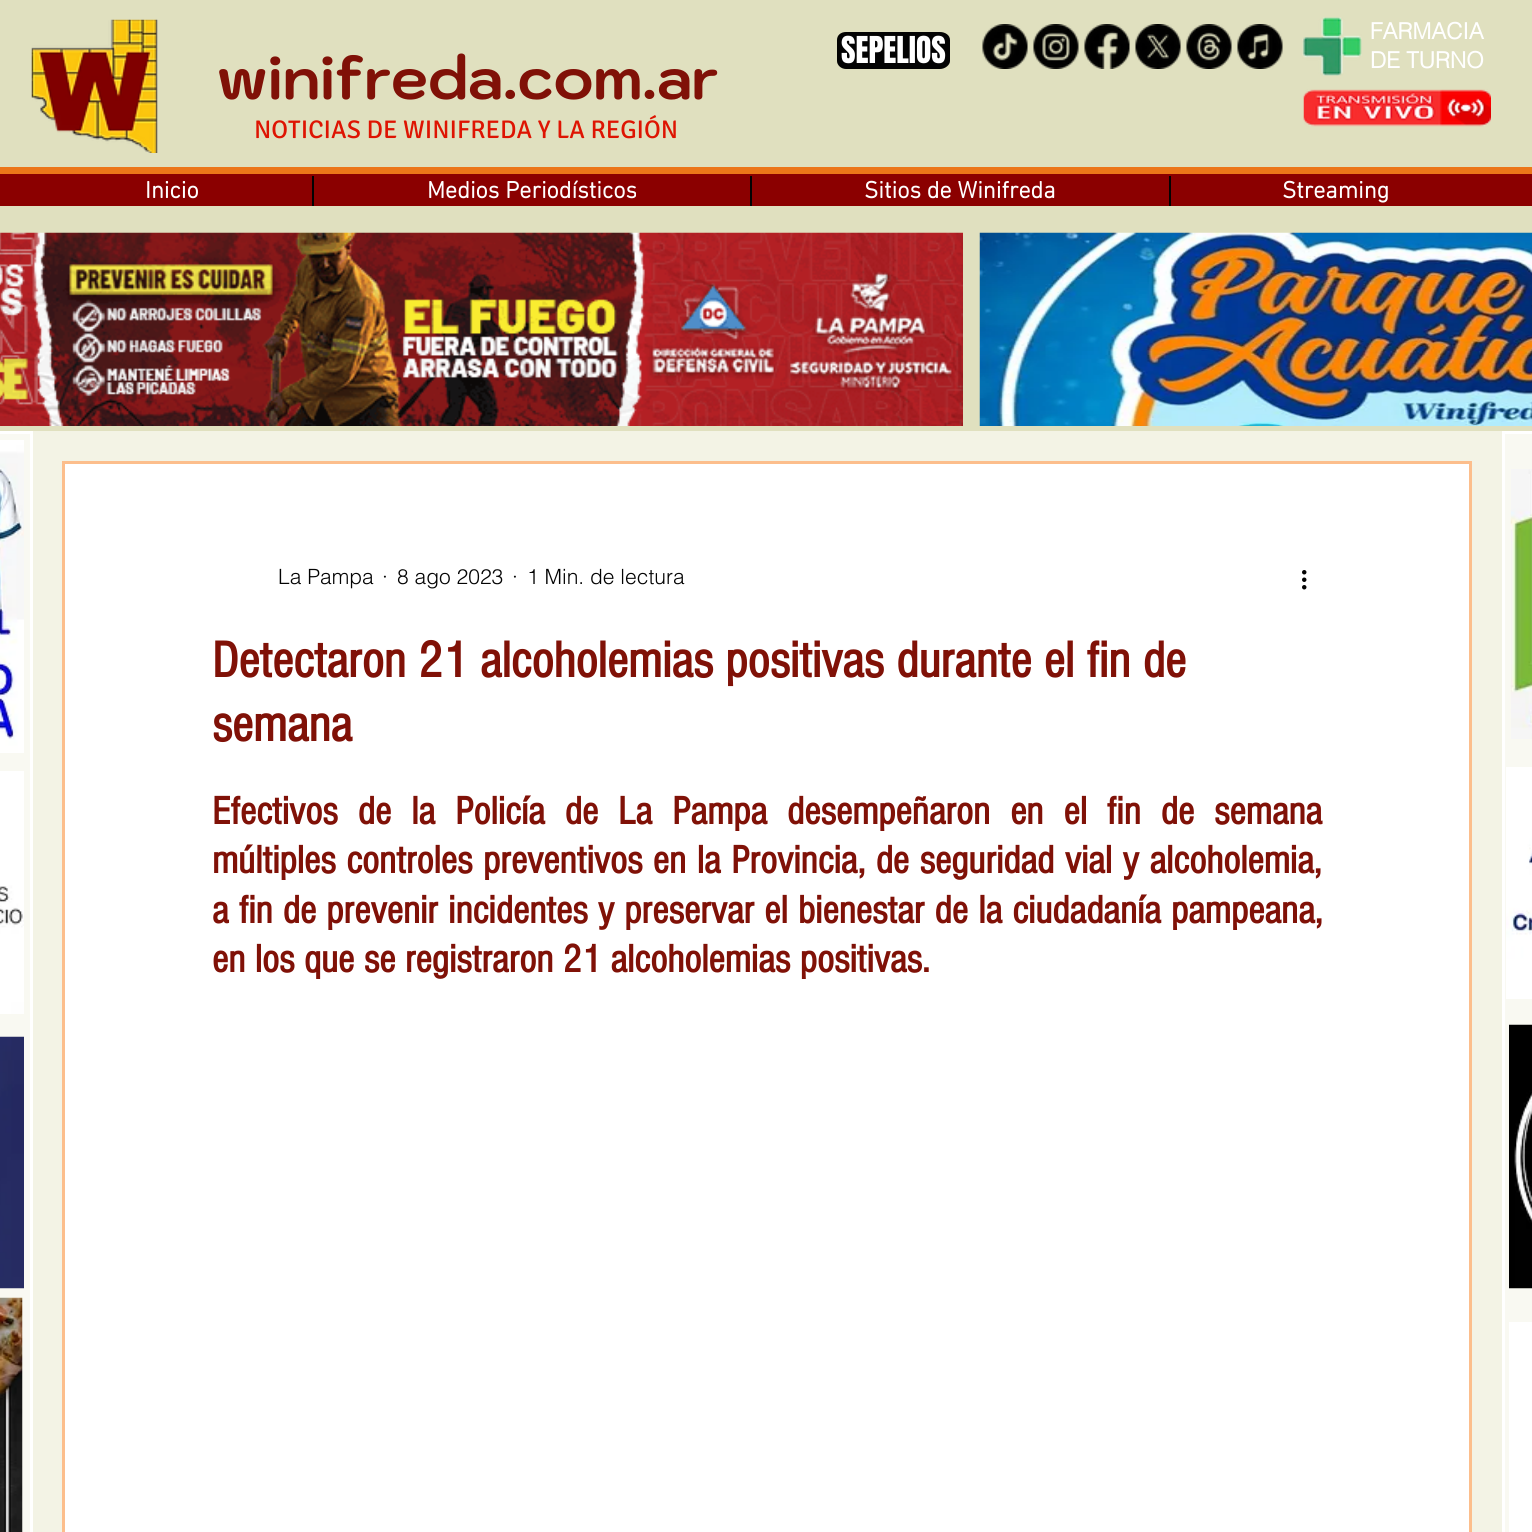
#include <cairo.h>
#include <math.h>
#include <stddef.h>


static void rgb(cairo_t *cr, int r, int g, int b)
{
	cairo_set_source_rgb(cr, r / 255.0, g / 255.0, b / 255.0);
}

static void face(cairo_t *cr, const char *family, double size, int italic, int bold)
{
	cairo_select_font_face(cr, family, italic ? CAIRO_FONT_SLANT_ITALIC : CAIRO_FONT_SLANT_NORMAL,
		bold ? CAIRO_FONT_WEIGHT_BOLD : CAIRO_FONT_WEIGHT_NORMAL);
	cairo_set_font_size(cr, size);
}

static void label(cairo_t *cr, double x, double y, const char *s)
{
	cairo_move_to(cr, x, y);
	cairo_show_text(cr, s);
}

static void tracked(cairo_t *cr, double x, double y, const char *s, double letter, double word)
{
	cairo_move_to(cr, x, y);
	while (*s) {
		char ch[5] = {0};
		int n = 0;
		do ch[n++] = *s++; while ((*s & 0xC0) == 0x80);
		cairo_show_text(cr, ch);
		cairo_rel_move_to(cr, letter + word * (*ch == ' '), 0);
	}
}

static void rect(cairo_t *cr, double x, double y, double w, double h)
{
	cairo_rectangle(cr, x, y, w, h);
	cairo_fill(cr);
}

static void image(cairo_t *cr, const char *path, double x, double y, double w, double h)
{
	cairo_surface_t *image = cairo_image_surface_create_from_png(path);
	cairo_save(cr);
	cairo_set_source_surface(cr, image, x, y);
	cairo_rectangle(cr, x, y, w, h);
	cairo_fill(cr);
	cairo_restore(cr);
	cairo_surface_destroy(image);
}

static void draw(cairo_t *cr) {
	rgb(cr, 224, 224, 191);
	cairo_paint(cr);
	image(cr, "image0.png", 31, 19, 127, 134);
	rgb(cr, 3, 3, 3);
	cairo_new_path(cr);
	cairo_move_to(cr, 940, 69);
	cairo_line_to(cr, 846, 69);
	cairo_curve_to(cr, 841, 69, 837, 65, 837, 61);
	cairo_line_to(cr, 837, 40);
	cairo_curve_to(cr, 837, 35, 841, 32, 846, 32);
	cairo_line_to(cr, 940, 32);
	cairo_curve_to(cr, 945, 32, 950, 35, 950, 40);
	cairo_line_to(cr, 950, 61);
	cairo_curve_to(cr, 950, 65, 945, 69, 940, 69);
	cairo_close_path(cr);
	cairo_fill(cr);
	image(cr, "image1.png", 982, 24, 46, 45);
	image(cr, "image2.png", 1033, 24, 46, 45);
	image(cr, "image3.png", 1084, 24, 46, 45);
	image(cr, "image4.png", 1135, 24, 46, 45);
	image(cr, "image5.png", 1186, 24, 46, 45);
	image(cr, "image6.png", 1237, 24, 46, 45);
	image(cr, "image7.png", 1302, 17, 60, 59);
	face(cr, "helvetica", 22.5, 0, 1);
	rgb(cr, 255, 255, 255);
	label(cr, 1370, 39, "FARMACIA");
	label(cr, 1370, 68, "DE TURNO");
	face(cr, "Anton", 31.5, 0, 0);
	label(cr, 841, 63, "SEPELIOS");
	face(cr, "Kodchasan", 60, 0, 1);
	rgb(cr, 128, 17, 7);
	label(cr, 217, 99, "winifreda.com.ar");
	face(cr, "Signika", 25.5, 0, 0);
	rgb(cr, 222, 20, 2);
	label(cr, 254, 138, "NOTICIAS DE WINIFREDA Y LA REGIÓN");
	image(cr, "image8.png", 1303, 89, 188, 38);
	rgb(cr, 139, 0, 0);
	rect(cr, 0, 174, 1532, 32);
	rgb(cr, 236, 118, 25);
	rect(cr, 0, 167, 1532, 7);
	face(cr, "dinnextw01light", 24, 0, 1);
	rgb(cr, 255, 255, 255);
	label(cr, 145, 198, "Inicio");
	rgb(cr, 3, 3, 3);
	rect(cr, 312, 176, 2, 30);
	rgb(cr, 255, 255, 255);
	label(cr, 427, 198, "Medios Periodísticos");
	rgb(cr, 3, 3, 3);
	rect(cr, 750, 176, 2, 30);
	rgb(cr, 255, 255, 255);
	label(cr, 864, 198, "Sitios de Winifreda");
	rgb(cr, 3, 3, 3);
	rect(cr, 1169, 176, 2, 30);
	rgb(cr, 255, 255, 255);
	label(cr, 1282, 198, "Streaming");
	image(cr, "image9.png", 0, 232, 963, 194);
	image(cr, "image10.png", 979, 232, 553, 194);
	rgb(cr, 249, 249, 242);
	cairo_rectangle(cr, -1.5, 432.5, 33, 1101);
	cairo_fill_preserve(cr);
	rgb(cr, 255, 255, 255);
	cairo_set_line_width(cr, 3);
	cairo_stroke(cr);
	image(cr, "image11.png", 0, 440, 24, 313);
	image(cr, "image12.png", 0, 771, 24, 243);
	image(cr, "image13.png", 0, 1036, 24, 253);
	image(cr, "image14.png", 0, 1297, 23, 235);
	cairo_set_source_rgba(cr, 1, 1, 1, 0.6);
	rect(cr, 33, 431, 1469, 1101);
	rgb(cr, 255, 255, 255);
	cairo_rectangle(cr, 63.5, 462.5, 1407, 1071);
	cairo_fill_preserve(cr);
	rgb(cr, 252, 190, 140);
	cairo_stroke(cr);
	face(cr, "helvetica Light", 21, 0, 0);
	rgb(cr, 3, 3, 3);
	label(cr, 278, 584, "La Pampa");
	label(cr, 382, 584, "·");
	label(cr, 397, 584, "8 ago 2023");
	label(cr, 512, 584, "·");
	label(cr, 527, 584, "1 Min. de lectura");
	image(cr, "image15.png", 1302, 570, 5, 20);
	face(cr, "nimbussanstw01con", 52.5, 0, 1);
	rgb(cr, 128, 17, 7);
	label(cr, 212, 677, "Detectaron 21 alcoholemias positivas durante el fin de");
	label(cr, 212, 741, "semana");
	face(cr, "nimbussanstw01con", 40.5, 0, 1);
	tracked(cr, 212, 824, "Efectivos de la Policía de La Pampa desempeñaron en el fin de semana", 0, 10.5);
	tracked(cr, 212, 873, "múltiples controles preventivos en la Provincia, de seguridad vial y alcoholemia,", 0, 1);
	tracked(cr, 212, 923, "a fin de prevenir incidentes y preservar el bienestar de la ciudadanía pampeana,", 0, 0.7);
	label(cr, 212, 972, "en los que se registraron 21 alcoholemias positivas.");
	rgb(cr, 249, 249, 242);
	cairo_rectangle(cr, 1503.5, 432.5, 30, 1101);
	cairo_fill_preserve(cr);
	rgb(cr, 255, 255, 255);
	cairo_stroke(cr);
	image(cr, "image16.png", 1510, 469, 22, 270);
	image(cr, "image17.png", 1506, 767, 26, 232);
	image(cr, "image18.png", 1509, 1024, 23, 265);
	rect(cr, 1509, 1322, 23, 210);
}

int main(void) {
	cairo_surface_t *surface = cairo_image_surface_create(CAIRO_FORMAT_RGB24, 1532, 1532);
	cairo_t *cr = cairo_create(surface);
	cairo_font_options_t *options = cairo_font_options_create();
	cairo_font_options_set_hint_metrics(options, CAIRO_HINT_METRICS_OFF);
	cairo_font_options_set_hint_style(options, CAIRO_HINT_STYLE_NONE);
	cairo_set_font_options(cr, options);
	cairo_set_miter_limit(cr, 4);
	draw(cr);
	cairo_surface_write_to_png(surface, "render.png");
	cairo_font_options_destroy(options);
	cairo_destroy(cr);
	cairo_surface_destroy(surface);
	return 0;
}
